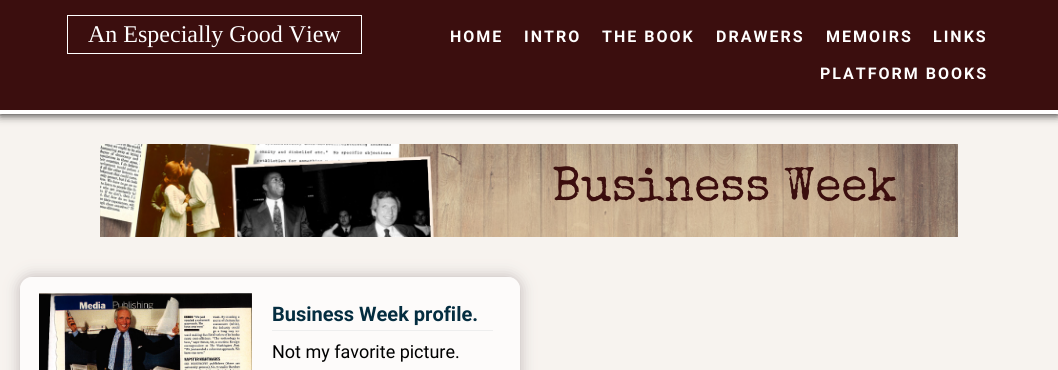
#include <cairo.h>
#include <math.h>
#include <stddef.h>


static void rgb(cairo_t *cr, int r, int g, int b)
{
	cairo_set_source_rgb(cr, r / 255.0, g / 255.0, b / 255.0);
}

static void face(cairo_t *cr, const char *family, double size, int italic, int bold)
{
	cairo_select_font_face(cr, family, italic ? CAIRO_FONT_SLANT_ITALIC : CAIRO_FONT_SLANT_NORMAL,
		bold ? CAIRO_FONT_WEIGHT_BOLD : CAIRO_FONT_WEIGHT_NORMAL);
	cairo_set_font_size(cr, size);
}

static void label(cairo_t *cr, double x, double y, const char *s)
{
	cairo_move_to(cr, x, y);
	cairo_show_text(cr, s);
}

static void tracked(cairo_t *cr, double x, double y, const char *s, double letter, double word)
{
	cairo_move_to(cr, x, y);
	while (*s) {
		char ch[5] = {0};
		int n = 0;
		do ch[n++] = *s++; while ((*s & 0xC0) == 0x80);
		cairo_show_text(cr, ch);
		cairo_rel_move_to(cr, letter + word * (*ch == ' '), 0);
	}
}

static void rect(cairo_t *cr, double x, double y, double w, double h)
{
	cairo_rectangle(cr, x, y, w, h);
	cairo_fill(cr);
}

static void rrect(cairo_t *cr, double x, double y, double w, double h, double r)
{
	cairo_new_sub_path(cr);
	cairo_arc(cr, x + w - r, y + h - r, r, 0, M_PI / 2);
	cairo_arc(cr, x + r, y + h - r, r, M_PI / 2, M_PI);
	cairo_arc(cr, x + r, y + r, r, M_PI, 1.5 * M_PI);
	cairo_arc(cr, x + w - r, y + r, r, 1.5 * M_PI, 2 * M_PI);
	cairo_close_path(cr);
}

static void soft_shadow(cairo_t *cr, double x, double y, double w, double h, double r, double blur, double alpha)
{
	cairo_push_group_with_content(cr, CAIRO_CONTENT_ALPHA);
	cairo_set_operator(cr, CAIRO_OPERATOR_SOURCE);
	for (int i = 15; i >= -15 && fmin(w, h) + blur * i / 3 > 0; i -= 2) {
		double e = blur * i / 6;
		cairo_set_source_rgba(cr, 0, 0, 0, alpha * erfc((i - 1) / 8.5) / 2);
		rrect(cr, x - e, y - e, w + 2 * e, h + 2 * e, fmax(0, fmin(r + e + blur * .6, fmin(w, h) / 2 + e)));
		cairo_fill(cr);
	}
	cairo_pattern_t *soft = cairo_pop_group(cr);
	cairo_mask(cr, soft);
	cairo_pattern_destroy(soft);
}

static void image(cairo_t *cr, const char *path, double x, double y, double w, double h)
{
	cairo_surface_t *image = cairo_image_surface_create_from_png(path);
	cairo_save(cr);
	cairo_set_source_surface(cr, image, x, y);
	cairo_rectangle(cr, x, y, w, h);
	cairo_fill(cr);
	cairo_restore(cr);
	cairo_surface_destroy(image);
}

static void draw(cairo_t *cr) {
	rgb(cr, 247, 243, 239);
	cairo_paint(cr);
	rgb(cr, 0, 0, 0);
	soft_shadow(cr, 0, 0, 1058, 114, 0, 5, 1);
	rgb(cr, 59, 14, 14);
	rect(cr, 0, 0, 1058, 110);
	rgb(cr, 255, 255, 255);
	rect(cr, 0, 110, 1058, 4);
	cairo_rectangle(cr, 67.5, 15.5, 294, 38);
	cairo_set_line_width(cr, 1);
	cairo_stroke(cr);
	face(cr, "Liberation Serif", 24, 0, 0);
	label(cr, 88, 42, "An Especially Good View");
	face(cr, "Roboto", 16, 0, 1);
	tracked(cr, 450, 42, "HOME", 2, 0);
	tracked(cr, 524, 42, "INTRO", 2, 0);
	tracked(cr, 602, 42, "THE BOOK", 2, 0);
	tracked(cr, 716, 42, "DRAWERS", 2, 0);
	tracked(cr, 826, 42, "MEMOIRS", 2, 0);
	tracked(cr, 933, 42, "LINKS", 2, 0);
	tracked(cr, 820, 79, "PLATFORM BOOKS", 2, 0);
	image(cr, "image0.png", 100, 144, 858, 93);
	face(cr, "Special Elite", 48, 0, 0);
	rgb(cr, 59, 14, 14);
	label(cr, 552, 200, "Business Week");
	cairo_save(cr);
	cairo_set_fill_rule(cr, CAIRO_FILL_RULE_EVEN_ODD);
	cairo_new_path(cr);
	cairo_move_to(cr, 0, 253);
	cairo_line_to(cr, 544, 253);
	cairo_line_to(cr, 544, 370);
	cairo_line_to(cr, 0, 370);
	cairo_close_path(cr);
	cairo_move_to(cr, 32, 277);
	cairo_line_to(cr, 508, 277);
	cairo_curve_to(cr, 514.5, 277, 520, 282.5, 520, 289);
	cairo_line_to(cr, 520, 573);
	cairo_curve_to(cr, 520, 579.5, 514.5, 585, 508, 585);
	cairo_line_to(cr, 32, 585);
	cairo_curve_to(cr, 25.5, 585, 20, 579.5, 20, 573);
	cairo_line_to(cr, 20, 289);
	cairo_curve_to(cr, 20, 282.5, 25.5, 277, 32, 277);
	cairo_close_path(cr);
	cairo_clip(cr);
	rgb(cr, 192, 184, 184);
	soft_shadow(cr, 20, 277, 500, 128, 12, 7.5, 1);
	cairo_restore(cr);
	cairo_set_source_rgba(cr, 1, 1, 1, 0.7);
	rrect(cr, 20, 277, 500, 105, 12);
	cairo_fill(cr);
	image(cr, "image1.png", 39, 293, 213, 77);
	face(cr, "Roboto", 20, 0, 1);
	rgb(cr, 4, 45, 64);
	label(cr, 272, 321, "Business Week profile.");
	rgb(cr, 238, 238, 238);
	rect(cr, 272, 330, 221, 1);
	face(cr, "Roboto", 18, 0, 0);
	rgb(cr, 0, 0, 0);
	label(cr, 272, 358, "Not my favorite picture.");
}

int main(void) {
	cairo_surface_t *surface = cairo_image_surface_create(CAIRO_FORMAT_RGB24, 1058, 370);
	cairo_t *cr = cairo_create(surface);
	cairo_font_options_t *options = cairo_font_options_create();
	cairo_font_options_set_hint_metrics(options, CAIRO_HINT_METRICS_OFF);
	cairo_font_options_set_hint_style(options, CAIRO_HINT_STYLE_NONE);
	cairo_set_font_options(cr, options);
	cairo_set_miter_limit(cr, 4);
	draw(cr);
	cairo_surface_write_to_png(surface, "render.png");
	cairo_font_options_destroy(options);
	cairo_destroy(cr);
	cairo_surface_destroy(surface);
	return 0;
}
